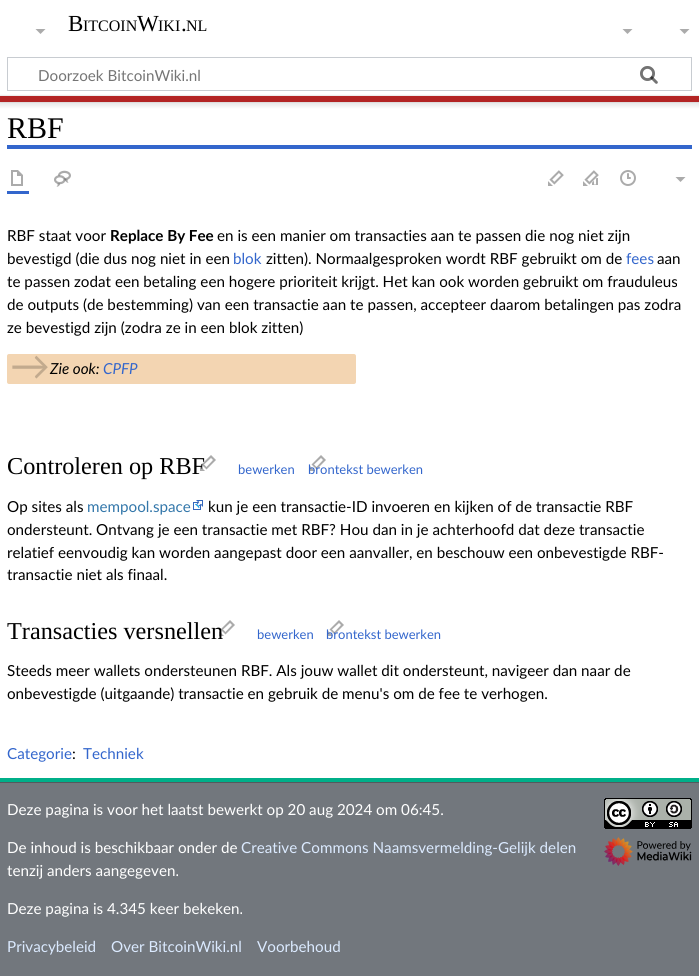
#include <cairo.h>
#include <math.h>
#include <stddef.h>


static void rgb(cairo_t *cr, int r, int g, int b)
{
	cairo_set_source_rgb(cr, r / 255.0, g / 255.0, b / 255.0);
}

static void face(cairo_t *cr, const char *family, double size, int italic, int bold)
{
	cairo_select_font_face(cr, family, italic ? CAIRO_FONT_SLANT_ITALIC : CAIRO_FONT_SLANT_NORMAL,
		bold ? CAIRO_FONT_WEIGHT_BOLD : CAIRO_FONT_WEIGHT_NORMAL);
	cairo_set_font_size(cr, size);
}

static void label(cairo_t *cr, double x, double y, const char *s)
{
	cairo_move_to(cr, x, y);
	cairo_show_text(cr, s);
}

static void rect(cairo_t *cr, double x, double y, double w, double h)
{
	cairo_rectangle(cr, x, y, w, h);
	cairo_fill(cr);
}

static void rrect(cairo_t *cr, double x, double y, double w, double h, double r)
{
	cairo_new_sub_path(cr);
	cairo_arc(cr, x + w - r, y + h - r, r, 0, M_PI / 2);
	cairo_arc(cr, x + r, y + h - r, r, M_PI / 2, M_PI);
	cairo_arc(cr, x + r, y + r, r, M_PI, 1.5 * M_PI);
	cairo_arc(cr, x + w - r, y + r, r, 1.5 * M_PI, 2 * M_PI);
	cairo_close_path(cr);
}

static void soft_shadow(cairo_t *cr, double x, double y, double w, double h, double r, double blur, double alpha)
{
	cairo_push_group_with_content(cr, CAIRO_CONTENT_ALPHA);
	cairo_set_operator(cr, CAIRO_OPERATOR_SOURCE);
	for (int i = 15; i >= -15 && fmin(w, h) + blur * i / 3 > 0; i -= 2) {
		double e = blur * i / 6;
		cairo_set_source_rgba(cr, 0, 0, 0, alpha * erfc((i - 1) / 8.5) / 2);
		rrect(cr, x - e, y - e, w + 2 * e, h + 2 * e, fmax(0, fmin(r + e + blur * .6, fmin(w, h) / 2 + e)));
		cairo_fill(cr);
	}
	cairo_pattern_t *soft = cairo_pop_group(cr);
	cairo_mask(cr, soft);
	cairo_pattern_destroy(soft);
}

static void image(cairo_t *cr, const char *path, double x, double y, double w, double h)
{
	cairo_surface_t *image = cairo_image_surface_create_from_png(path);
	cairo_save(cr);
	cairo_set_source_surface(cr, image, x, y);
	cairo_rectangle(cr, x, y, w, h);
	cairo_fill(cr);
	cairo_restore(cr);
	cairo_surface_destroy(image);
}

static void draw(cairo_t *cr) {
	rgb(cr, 114, 119, 125);
	cairo_paint(cr);
	rgb(cr, 255, 255, 255);
	rect(cr, 0, 0, 699, 96);
	face(cr, "Liberation Serif", 23, 0, 0);
	rgb(cr, 0, 0, 0);
	label(cr, 68, 31, "B");
	face(cr, "Liberation Serif", 16, 0, 0);
	label(cr, 83, 31, "ITCOIN");
	face(cr, "Liberation Serif", 23, 0, 0);
	label(cr, 137, 31, "W");
	face(cr, "Liberation Serif", 16, 0, 0);
	label(cr, 158, 31, "IKI");
	face(cr, "Liberation Serif", 23, 0, 0);
	label(cr, 181, 31, ".");
	face(cr, "Liberation Serif", 16, 0, 0);
	label(cr, 186, 31, "NL");
	rgb(cr, 171, 171, 171);
	cairo_new_path(cr);
	cairo_move_to(cr, 689.5, 29);
	cairo_line_to(cr, 684.5, 34);
	cairo_line_to(cr, 679.5, 29);
	cairo_close_path(cr);
	cairo_fill(cr);
	cairo_rectangle(cr, 7.5, 57.5, 684, 33);
	rgb(cr, 200, 204, 209);
	cairo_set_line_width(cr, 1);
	cairo_stroke(cr);
	image(cr, "image0.png", 640, 66, 18, 18);
	face(cr, "Lato", 15.2, 0, 0);
	rgb(cr, 117, 117, 117);
	label(cr, 38, 81, "Doorzoek BitcoinWiki.nl");
	image(cr, "image1.png", 640, 66, 18, 18);
	rgb(cr, 255, 255, 255);
	rect(cr, 0, 102, 699, 676);
	rgb(cr, 0, 0, 0);
	soft_shadow(cr, 0, 96, 699, 6, 0, 1, 0.2);
	soft_shadow(cr, -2, 97, 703, 10, 0, 1.5, 0.07);
	rgb(cr, 179, 36, 36);
	rect(cr, 0, 96, 699, 6);
	rgb(cr, 0, 175, 137);
	rect(cr, 0, 778, 699, 4);
	rgb(cr, 171, 171, 171);
	cairo_new_path(cr);
	cairo_move_to(cr, 45.5, 29);
	cairo_line_to(cr, 40.5, 34);
	cairo_line_to(cr, 35.5, 29);
	cairo_close_path(cr);
	cairo_fill(cr);
	cairo_new_path(cr);
	cairo_move_to(cr, 632.5, 29);
	cairo_line_to(cr, 627.5, 34);
	cairo_line_to(cr, 622.5, 29);
	cairo_close_path(cr);
	cairo_fill(cr);
	rgb(cr, 51, 102, 204);
	rect(cr, 7, 145, 685, 4);
	face(cr, "Liberation Serif", 30, 0, 0);
	rgb(cr, 0, 0, 0);
	label(cr, 7, 138, "RBF");
	rgb(cr, 51, 102, 204);
	rect(cr, 7, 191, 22, 3);
	image(cr, "image2.png", 11, 170, 12, 16);
	image(cr, "image3.png", 54, 170, 17, 17);
	image(cr, "image4.png", 548, 170, 16, 16);
	image(cr, "image5.png", 583, 170, 16, 16);
	image(cr, "image6.png", 620, 170, 16, 16);
	rgb(cr, 171, 171, 171);
	cairo_new_path(cr);
	cairo_move_to(cr, 685.5, 177);
	cairo_line_to(cr, 680.5, 182);
	cairo_line_to(cr, 675.5, 177);
	cairo_close_path(cr);
	cairo_fill(cr);
	face(cr, "Lato", 15.2, 0, 0);
	rgb(cr, 0, 0, 0);
	label(cr, 7, 241, "RBF staat voor");
	face(cr, "Lato", 15.2, 0, 1);
	label(cr, 110, 241, "Replace By Fee");
	face(cr, "Lato", 15.2, 0, 0);
	label(cr, 217, 241, "en is een manier om transacties aan te passen die nog niet zijn");
	label(cr, 7, 264, "bevestigd (die dus nog niet in een");
	rgb(cr, 51, 102, 204);
	label(cr, 233, 264, "blok");
	rgb(cr, 0, 0, 0);
	label(cr, 266, 264, "zitten). Normaalgesproken wordt RBF gebruikt om de");
	rgb(cr, 51, 102, 204);
	label(cr, 626, 264, "fees");
	rgb(cr, 0, 0, 0);
	label(cr, 657, 264, "aan");
	label(cr, 7, 287, "te passen zodat een betaling een hogere prioriteit krijgt. Het kan ook worden gebruikt om frauduleus");
	label(cr, 7, 310, "de outputs (de bestemming) van een transactie aan te passen, accepteer daarom betalingen pas zodra");
	label(cr, 7, 333, "ze bevestigd zijn (zodra ze in een blok zitten)");
	rgb(cr, 243, 213, 178);
	rrect(cr, 7, 354, 349, 30, 2);
	cairo_fill(cr);
	face(cr, "Lato", 40, 0, 0);
	rgb(cr, 194, 170, 142);
	label(cr, 10, 380, "→");
	face(cr, "Lato", 15.2, 1, 0);
	rgb(cr, 0, 0, 0);
	label(cr, 50, 374, "Zie ook:");
	rgb(cr, 51, 102, 204);
	label(cr, 103, 374, "CPFP");
	face(cr, "Liberation Serif", 24.25, 0, 0);
	rgb(cr, 0, 0, 0);
	label(cr, 7, 474, "Controleren op RBF");
	cairo_set_source_rgba(cr, 0, 0, 0, 0.33);
	cairo_new_path(cr);
	cairo_move_to(cr, 211, 455);
	cairo_line_to(cr, 201.5, 464.5);
	cairo_line_to(cr, 206.5, 469.5);
	cairo_line_to(cr, 216, 460);
	cairo_close_path(cr);
	cairo_move_to(cr, 211, 458);
	cairo_line_to(cr, 213, 460);
	cairo_line_to(cr, 206.5, 467);
	cairo_line_to(cr, 204, 464.5);
	cairo_close_path(cr);
	cairo_move_to(cr, 205, 471);
	cairo_line_to(cr, 200, 471);
	cairo_line_to(cr, 200, 466);
	cairo_close_path(cr);
	cairo_fill(cr);
	rgb(cr, 171, 171, 171);
	cairo_new_path(cr);
	cairo_move_to(cr, 321, 455);
	cairo_line_to(cr, 311.5, 464.5);
	cairo_line_to(cr, 316.5, 469.5);
	cairo_line_to(cr, 326, 460);
	cairo_close_path(cr);
	cairo_move_to(cr, 321, 458);
	cairo_line_to(cr, 323, 460);
	cairo_line_to(cr, 316.5, 467);
	cairo_line_to(cr, 314, 464.5);
	cairo_close_path(cr);
	cairo_move_to(cr, 315, 471);
	cairo_line_to(cr, 310, 471);
	cairo_line_to(cr, 310, 466);
	cairo_close_path(cr);
	cairo_fill(cr);
	face(cr, "Lato", 13, 0, 0);
	rgb(cr, 51, 102, 204);
	label(cr, 238, 474, "bewerken");
	label(cr, 308, 474, "brontekst bewerken");
	face(cr, "Lato", 15.2, 0, 0);
	rgb(cr, 0, 0, 0);
	label(cr, 7, 512, "Op sites als");
	rgb(cr, 51, 119, 170);
	label(cr, 87, 512, "mempool.space");
	image(cr, "image7.png", 193, 500, 10, 10);
	rgb(cr, 0, 0, 0);
	label(cr, 208, 512, "kun je een transactie-ID invoeren en kijken of de transactie RBF");
	label(cr, 7, 535, "ondersteunt. Ontvang je een transactie met RBF? Hou dan in je achterhoofd dat deze transactie");
	label(cr, 7, 558, "relatief eenvoudig kan worden aangepast door een aanvaller, en beschouw een onbevestigde RBF-");
	label(cr, 7, 580, "transactie niet als finaal.");
	face(cr, "Liberation Serif", 24.25, 0, 0);
	label(cr, 7, 639, "Transacties versnellen");
	cairo_set_source_rgba(cr, 0, 0, 0, 0.33);
	cairo_new_path(cr);
	cairo_move_to(cr, 230, 620);
	cairo_line_to(cr, 220.5, 629.5);
	cairo_line_to(cr, 225.5, 634.5);
	cairo_line_to(cr, 235, 625);
	cairo_close_path(cr);
	cairo_move_to(cr, 230, 623);
	cairo_line_to(cr, 232, 625);
	cairo_line_to(cr, 225.5, 632);
	cairo_line_to(cr, 223, 629.5);
	cairo_close_path(cr);
	cairo_move_to(cr, 224, 636);
	cairo_line_to(cr, 219, 636);
	cairo_line_to(cr, 219, 631);
	cairo_close_path(cr);
	cairo_fill(cr);
	rgb(cr, 171, 171, 171);
	cairo_new_path(cr);
	cairo_move_to(cr, 339, 620);
	cairo_line_to(cr, 329.5, 629.5);
	cairo_line_to(cr, 334.5, 634.5);
	cairo_line_to(cr, 344, 625);
	cairo_close_path(cr);
	cairo_move_to(cr, 339, 623);
	cairo_line_to(cr, 341, 625);
	cairo_line_to(cr, 334.5, 632);
	cairo_line_to(cr, 332, 629.5);
	cairo_close_path(cr);
	cairo_move_to(cr, 333, 636);
	cairo_line_to(cr, 328, 636);
	cairo_line_to(cr, 328, 631);
	cairo_close_path(cr);
	cairo_fill(cr);
	face(cr, "Lato", 13, 0, 0);
	rgb(cr, 51, 102, 204);
	label(cr, 257, 639, "bewerken");
	label(cr, 326, 639, "brontekst bewerken");
	face(cr, "Lato", 15.2, 0, 0);
	rgb(cr, 0, 0, 0);
	label(cr, 7, 676, "Steeds meer wallets ondersteunen RBF. Als jouw wallet dit ondersteunt, navigeer dan naar de");
	label(cr, 7, 699, "onbevestigde (uitgaande) transactie en gebruik de menu's om de fee te verhogen.");
	rgb(cr, 51, 102, 204);
	label(cr, 7, 759, "Categorie");
	rgb(cr, 0, 0, 0);
	label(cr, 72, 759, ":");
	rgb(cr, 51, 102, 204);
	label(cr, 83, 759, "Techniek");
	rgb(cr, 84, 89, 93);
	rect(cr, 0, 782, 699, 1);
	rgb(cr, 255, 255, 255);
	label(cr, 7, 815, "Deze pagina is voor het laatst bewerkt op 20 aug 2024 om 06:45.");
	label(cr, 7, 853, "De inhoud is beschikbaar onder de");
	rgb(cr, 219, 234, 255);
	label(cr, 241, 853, "Creative Commons Naamsvermelding-Gelijk delen");
	rgb(cr, 255, 255, 255);
	label(cr, 7, 876, "tenzij anders aangegeven.");
	label(cr, 7, 914, "Deze pagina is 4.345 keer bekeken.");
	rgb(cr, 219, 234, 255);
	label(cr, 7, 952, "Privacybeleid");
	label(cr, 111, 952, "Over BitcoinWiki.nl");
	label(cr, 257, 952, "Voorbehoud");
	image(cr, "image8.png", 604, 798, 88, 31);
	image(cr, "image9.png", 604, 837, 88, 29);
}

int main(void) {
	cairo_surface_t *surface = cairo_image_surface_create(CAIRO_FORMAT_RGB24, 699, 976);
	cairo_t *cr = cairo_create(surface);
	cairo_font_options_t *options = cairo_font_options_create();
	cairo_font_options_set_hint_metrics(options, CAIRO_HINT_METRICS_OFF);
	cairo_font_options_set_hint_style(options, CAIRO_HINT_STYLE_NONE);
	cairo_set_font_options(cr, options);
	cairo_set_miter_limit(cr, 4);
	draw(cr);
	cairo_surface_write_to_png(surface, "render.png");
	cairo_font_options_destroy(options);
	cairo_destroy(cr);
	cairo_surface_destroy(surface);
	return 0;
}
